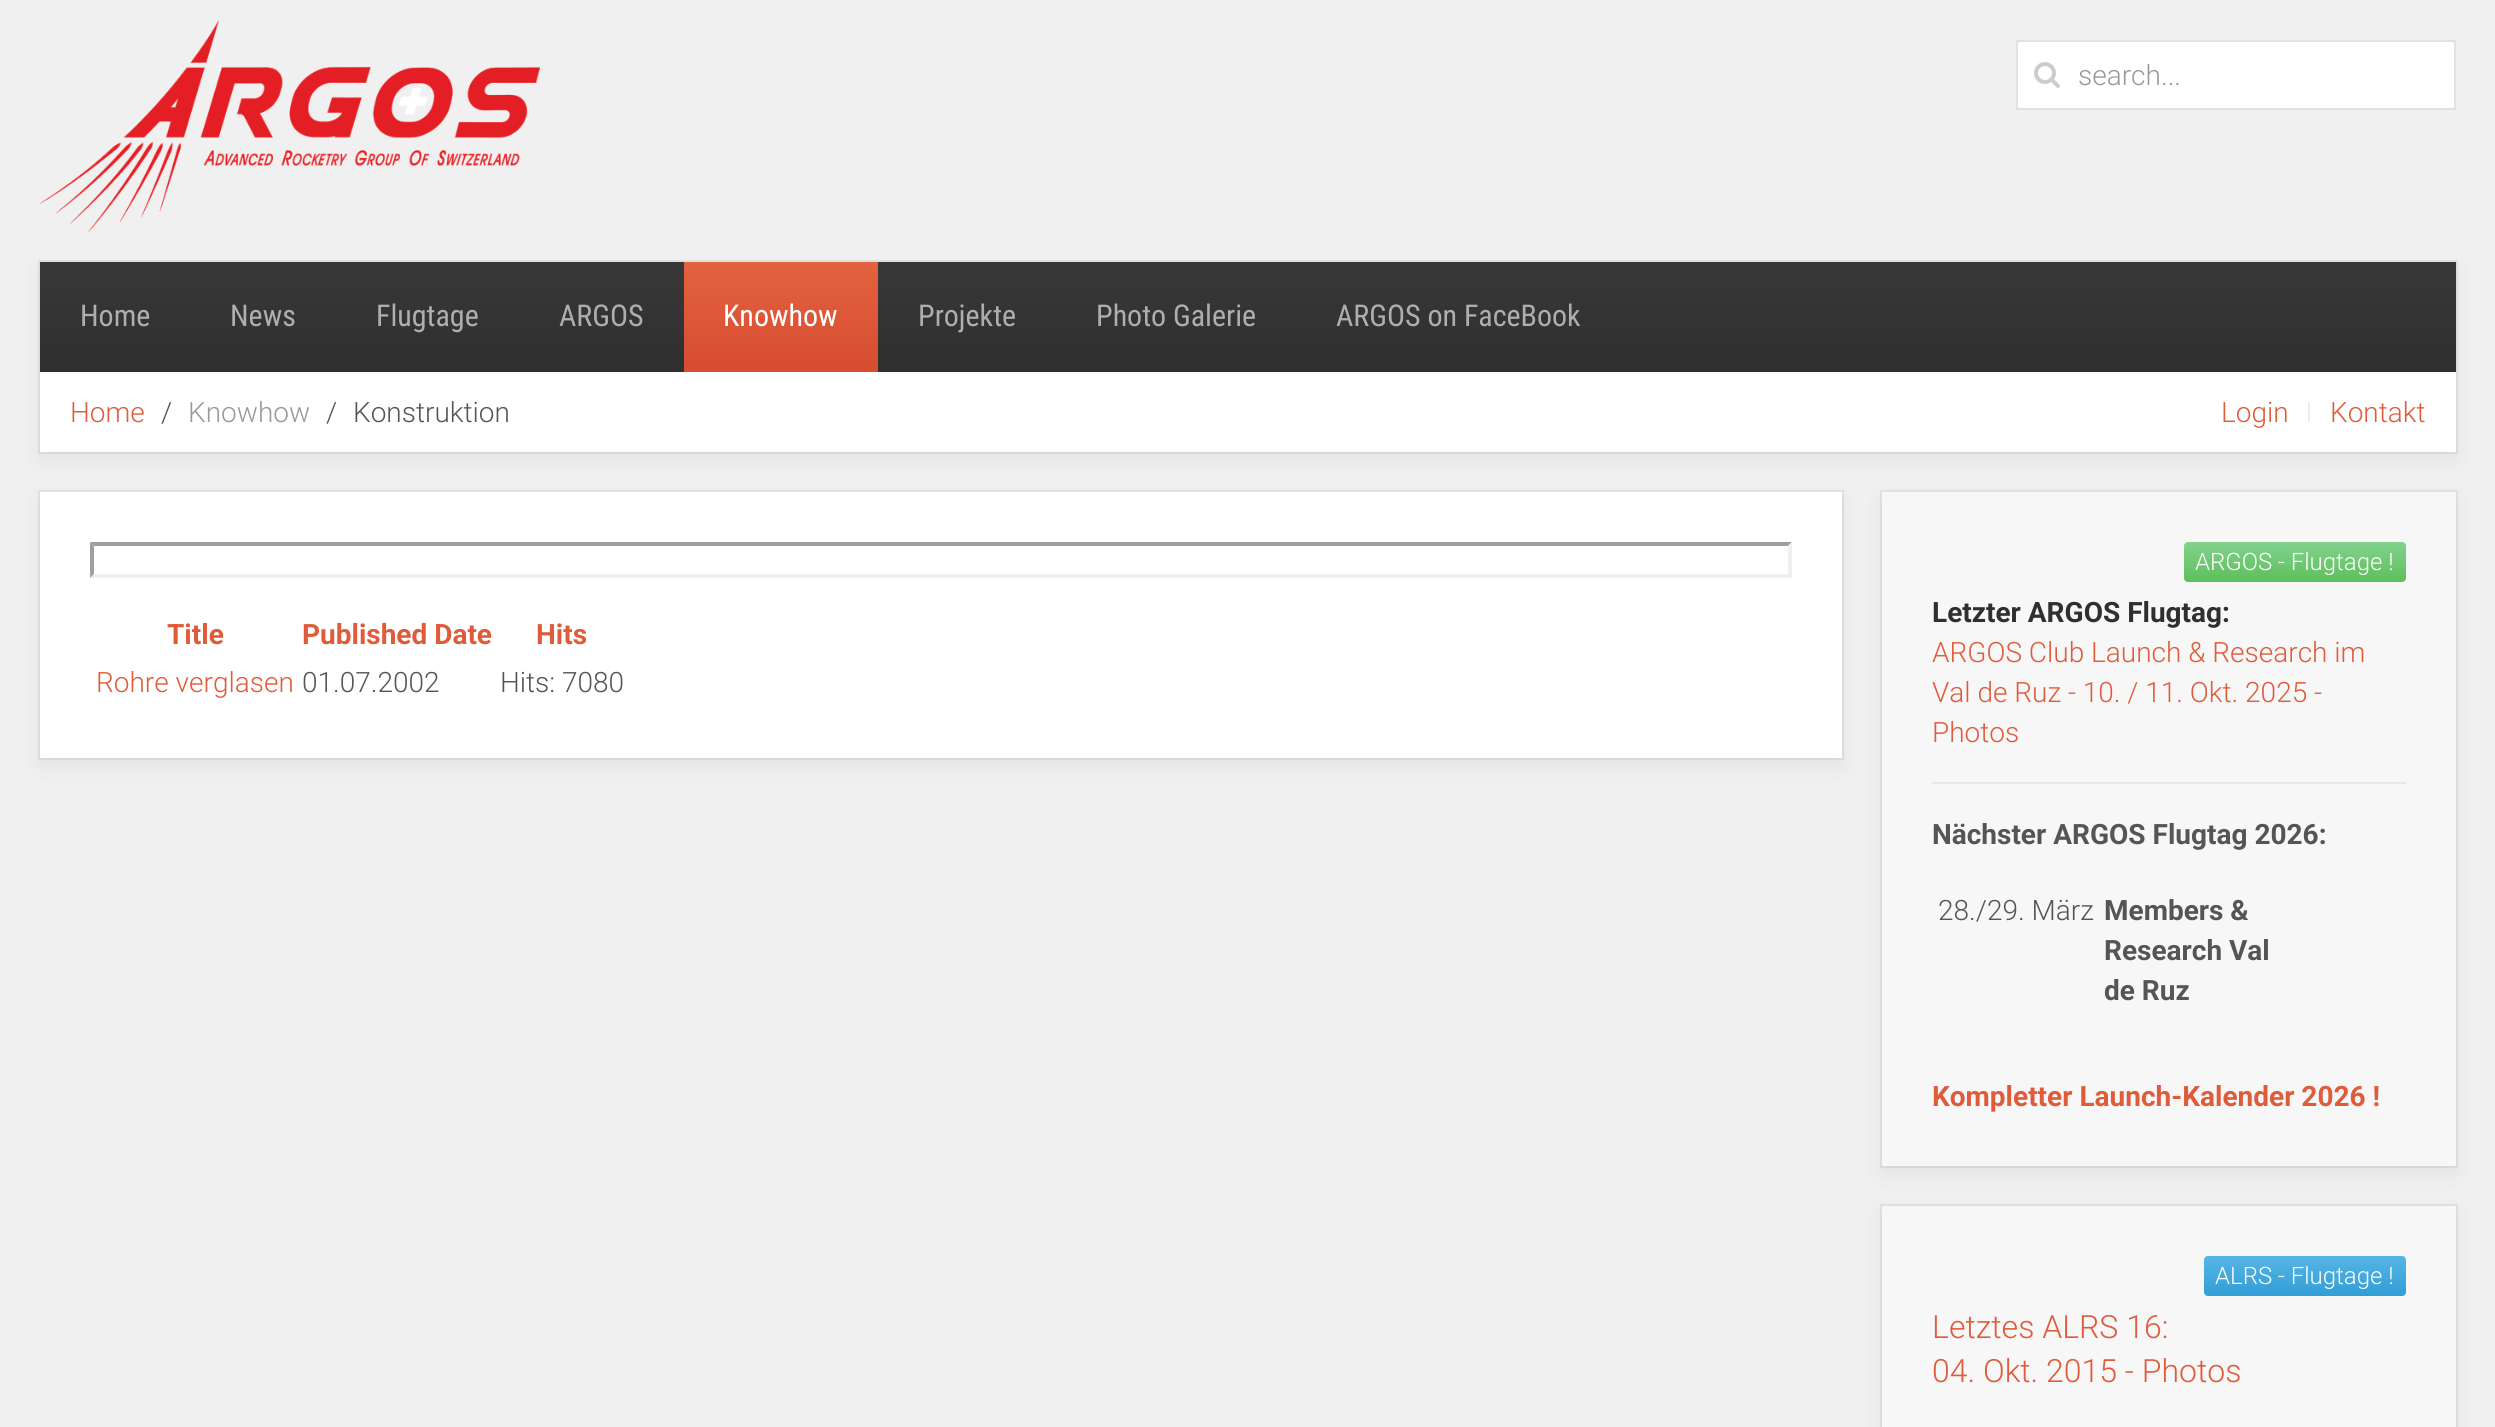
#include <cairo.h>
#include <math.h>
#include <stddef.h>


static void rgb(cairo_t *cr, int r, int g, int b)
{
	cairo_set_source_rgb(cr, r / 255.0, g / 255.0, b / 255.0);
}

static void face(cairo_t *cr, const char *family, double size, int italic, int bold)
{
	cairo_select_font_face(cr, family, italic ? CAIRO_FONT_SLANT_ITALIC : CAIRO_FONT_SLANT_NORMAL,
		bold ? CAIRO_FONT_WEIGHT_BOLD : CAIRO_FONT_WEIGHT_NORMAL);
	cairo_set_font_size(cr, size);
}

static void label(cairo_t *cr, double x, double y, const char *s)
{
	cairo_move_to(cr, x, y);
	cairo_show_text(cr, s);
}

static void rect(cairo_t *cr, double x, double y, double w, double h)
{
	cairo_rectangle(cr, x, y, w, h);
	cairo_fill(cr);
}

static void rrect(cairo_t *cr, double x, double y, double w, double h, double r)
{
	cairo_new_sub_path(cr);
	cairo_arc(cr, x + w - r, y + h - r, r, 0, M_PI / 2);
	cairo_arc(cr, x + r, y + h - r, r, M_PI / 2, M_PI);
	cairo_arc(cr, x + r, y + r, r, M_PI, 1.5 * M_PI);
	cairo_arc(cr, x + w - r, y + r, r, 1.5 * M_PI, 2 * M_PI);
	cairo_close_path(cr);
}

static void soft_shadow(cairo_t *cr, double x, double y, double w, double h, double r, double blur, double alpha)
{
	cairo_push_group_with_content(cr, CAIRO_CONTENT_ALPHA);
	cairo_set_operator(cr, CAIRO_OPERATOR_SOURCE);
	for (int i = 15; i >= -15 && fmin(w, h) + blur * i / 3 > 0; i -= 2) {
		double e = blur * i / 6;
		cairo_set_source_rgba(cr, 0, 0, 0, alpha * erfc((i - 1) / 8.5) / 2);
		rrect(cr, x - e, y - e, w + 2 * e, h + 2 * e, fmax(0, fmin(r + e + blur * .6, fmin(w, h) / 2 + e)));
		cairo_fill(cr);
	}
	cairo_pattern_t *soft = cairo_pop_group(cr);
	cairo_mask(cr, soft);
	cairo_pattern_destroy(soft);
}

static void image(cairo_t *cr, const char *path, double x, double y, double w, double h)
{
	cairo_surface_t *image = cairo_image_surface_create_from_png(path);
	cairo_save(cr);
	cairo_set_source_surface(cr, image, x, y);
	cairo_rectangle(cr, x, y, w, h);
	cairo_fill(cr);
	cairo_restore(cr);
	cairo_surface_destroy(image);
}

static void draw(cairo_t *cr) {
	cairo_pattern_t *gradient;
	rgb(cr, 240, 240, 240);
	cairo_paint(cr);
	image(cr, "image0.png", 40, 20, 500, 212);
	rgb(cr, 255, 255, 255);
	rrect(cr, 2018, 42, 436, 66, 2);
	cairo_fill(cr);
	cairo_rectangle(cr, 2017, 41, 438, 68);
	cairo_set_source_rgba(cr, 0, 0, 0, 0.06);
	cairo_stroke(cr);
	image(cr, "image1.png", 2034, 62, 26, 26);
	face(cr, "Roboto Light", 28, 0, 0);
	rgb(cr, 153, 153, 153);
	label(cr, 2078, 85, "search...");
	rgb(cr, 0, 0, 0);
	soft_shadow(cr, 40, 270, 2416, 190, 0, 10, 0.06);
	cairo_rectangle(cr, 39, 261, 2418, 192);
	cairo_set_source_rgba(cr, 0, 0, 0, 0.06);
	cairo_stroke(cr);
	rgb(cr, 255, 255, 255);
	rect(cr, 40, 372, 2416, 80);
	gradient = cairo_pattern_create_linear(1248, 262, 1248, 372);
	cairo_pattern_add_color_stop_rgba(gradient, 0, 0.22, 0.22, 0.22, 1);
	cairo_pattern_add_color_stop_rgba(gradient, 1, 0.184, 0.184, 0.184, 1);
	cairo_set_source(cr, gradient);
	cairo_pattern_destroy(gradient);
	rect(cr, 40, 262, 2416, 110);
	face(cr, "Roboto Condensed", 30, 0, 0);
	rgb(cr, 174, 174, 174);
	label(cr, 80, 326, "Home");
	label(cr, 230, 326, "News");
	label(cr, 376, 326, "Flugtage");
	label(cr, 559, 326, "ARGOS");
	gradient = cairo_pattern_create_linear(781, 262, 781, 372);
	cairo_pattern_add_color_stop_rgba(gradient, 0, 0.894, 0.384, 0.247, 1);
	cairo_pattern_add_color_stop_rgba(gradient, 1, 0.839, 0.298, 0.192, 1);
	cairo_set_source(cr, gradient);
	cairo_pattern_destroy(gradient);
	rect(cr, 684, 262, 194, 110);
	rgb(cr, 255, 255, 255);
	label(cr, 723, 326, "Knowhow");
	rgb(cr, 174, 174, 174);
	label(cr, 918, 326, "Projekte");
	label(cr, 1096, 326, "Photo Galerie");
	label(cr, 1336, 326, "ARGOS on FaceBook");
	face(cr, "Roboto Light", 28, 0, 0);
	rgb(cr, 224, 91, 58);
	label(cr, 70, 422, "Home");
	rgb(cr, 85, 85, 85);
	label(cr, 161, 422, "/");
	rgb(cr, 153, 153, 153);
	label(cr, 188, 422, "Knowhow");
	rgb(cr, 85, 85, 85);
	label(cr, 326, 422, "/");
	label(cr, 353, 422, "Konstruktion");
	rgb(cr, 224, 91, 58);
	label(cr, 2221, 422, "Login");
	rgb(cr, 237, 237, 237);
	rect(cr, 2308, 402, 2, 20);
	rgb(cr, 224, 91, 58);
	label(cr, 2330, 422, "Kontakt");
	rgb(cr, 0, 0, 0);
	soft_shadow(cr, 40, 500, 1802, 266, 0, 10, 0.06);
	cairo_rectangle(cr, 39, 491, 1804, 268);
	cairo_set_source_rgba(cr, 0, 0, 0, 0.06);
	cairo_stroke(cr);
	rgb(cr, 255, 255, 255);
	rect(cr, 40, 492, 1802, 266);
	rgb(cr, 159, 159, 159);
	cairo_new_path(cr);
	cairo_move_to(cr, 90, 542);
	cairo_line_to(cr, 1792, 542);
	cairo_line_to(cr, 1788, 546);
	cairo_line_to(cr, 94, 546);
	cairo_close_path(cr);
	cairo_fill(cr);
	rgb(cr, 239, 239, 239);
	cairo_new_path(cr);
	cairo_move_to(cr, 1792, 542);
	cairo_line_to(cr, 1792, 578);
	cairo_line_to(cr, 1788, 574);
	cairo_line_to(cr, 1788, 546);
	cairo_close_path(cr);
	cairo_fill(cr);
	cairo_new_path(cr);
	cairo_move_to(cr, 1792, 578);
	cairo_line_to(cr, 90, 578);
	cairo_line_to(cr, 94, 574);
	cairo_line_to(cr, 1788, 574);
	cairo_close_path(cr);
	cairo_fill(cr);
	rgb(cr, 159, 159, 159);
	cairo_new_path(cr);
	cairo_move_to(cr, 90, 578);
	cairo_line_to(cr, 90, 542);
	cairo_line_to(cr, 94, 546);
	cairo_line_to(cr, 94, 574);
	cairo_close_path(cr);
	cairo_fill(cr);
	face(cr, "Roboto", 28, 0, 1);
	rgb(cr, 224, 91, 58);
	label(cr, 167, 644, "Title");
	label(cr, 302, 644, "Published Date");
	label(cr, 536, 644, "Hits");
	face(cr, "Roboto Light", 28, 0, 0);
	label(cr, 96, 692, "Rohre verglasen");
	rgb(cr, 85, 85, 85);
	label(cr, 302, 692, "01.07.2002");
	label(cr, 500, 692, "Hits: 7080");
	rgb(cr, 0, 0, 0);
	soft_shadow(cr, 1882, 500, 574, 674, 0, 10, 0.06);
	cairo_rectangle(cr, 1881, 491, 576, 676);
	cairo_set_source_rgba(cr, 0, 0, 0, 0.06);
	cairo_stroke(cr);
	rgb(cr, 247, 247, 247);
	rect(cr, 1882, 492, 574, 674);
	gradient = cairo_pattern_create_linear(2295, 542, 2295, 582);
	cairo_pattern_add_color_stop_rgba(gradient, 0, 0.51, 0.824, 0.561, 1);
	cairo_pattern_add_color_stop_rgba(gradient, 1, 0.369, 0.749, 0.349, 1);
	cairo_set_source(cr, gradient);
	cairo_pattern_destroy(gradient);
	rrect(cr, 2184, 542, 222, 40, 4);
	cairo_fill(cr);
	face(cr, "Roboto Light", 24, 0, 0);
	rgb(cr, 255, 255, 255);
	label(cr, 2195, 570, "ARGOS - Flugtage !");
	face(cr, "Roboto", 28, 0, 1);
	rgb(cr, 47, 47, 47);
	label(cr, 1932, 622, "Letzter ARGOS Flugtag:");
	face(cr, "Roboto Light", 28, 0, 0);
	rgb(cr, 224, 91, 58);
	label(cr, 1932, 662, "ARGOS Club Launch & Research im");
	label(cr, 1932, 702, "Val de Ruz - 10. / 11. Okt. 2025 -");
	label(cr, 1932, 742, "Photos");
	rgb(cr, 230, 230, 230);
	rect(cr, 1932, 782, 474, 2);
	face(cr, "Roboto", 28, 0, 1);
	rgb(cr, 85, 85, 85);
	label(cr, 1932, 844, "Nächster ARGOS Flugtag 2026:");
	face(cr, "Roboto Light", 28, 0, 0);
	label(cr, 1938, 920, "28./29. März");
	face(cr, "Roboto", 28, 0, 1);
	label(cr, 2104, 920, "Members &");
	label(cr, 2104, 960, "Research Val");
	label(cr, 2104, 1000, "de Ruz");
	rgb(cr, 224, 91, 58);
	label(cr, 1932, 1106, "Kompletter Launch-Kalender 2026 !");
	rgb(cr, 0, 0, 0);
	soft_shadow(cr, 1882, 1214, 574, 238, 0, 10, 0.06);
	cairo_rectangle(cr, 1881, 1205, 576, 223);
	cairo_set_source_rgba(cr, 0, 0, 0, 0.06);
	cairo_stroke(cr);
	rgb(cr, 247, 247, 247);
	rect(cr, 1882, 1206, 574, 221);
	gradient = cairo_pattern_create_linear(2305, 1256, 2305, 1296);
	cairo_pattern_add_color_stop_rgba(gradient, 0, 0.341, 0.71, 0.898, 1);
	cairo_pattern_add_color_stop_rgba(gradient, 1, 0.192, 0.62, 0.839, 1);
	cairo_set_source(cr, gradient);
	cairo_pattern_destroy(gradient);
	rrect(cr, 2204, 1256, 202, 40, 4);
	cairo_fill(cr);
	face(cr, "Roboto Light", 24, 0, 0);
	rgb(cr, 255, 255, 255);
	label(cr, 2215, 1284, "ALRS - Flugtage !");
	face(cr, "Roboto Light", 32, 0, 0);
	rgb(cr, 224, 91, 58);
	label(cr, 1932, 1338, "Letztes ALRS 16:");
	label(cr, 1932, 1382, "04. Okt. 2015 - Photos");
}

int main(void) {
	cairo_surface_t *surface = cairo_image_surface_create(CAIRO_FORMAT_RGB24, 2495, 1427);
	cairo_t *cr = cairo_create(surface);
	cairo_font_options_t *options = cairo_font_options_create();
	cairo_font_options_set_hint_metrics(options, CAIRO_HINT_METRICS_OFF);
	cairo_font_options_set_hint_style(options, CAIRO_HINT_STYLE_NONE);
	cairo_set_font_options(cr, options);
	cairo_set_miter_limit(cr, 4);
	draw(cr);
	cairo_surface_write_to_png(surface, "render.png");
	cairo_font_options_destroy(options);
	cairo_destroy(cr);
	cairo_surface_destroy(surface);
	return 0;
}
